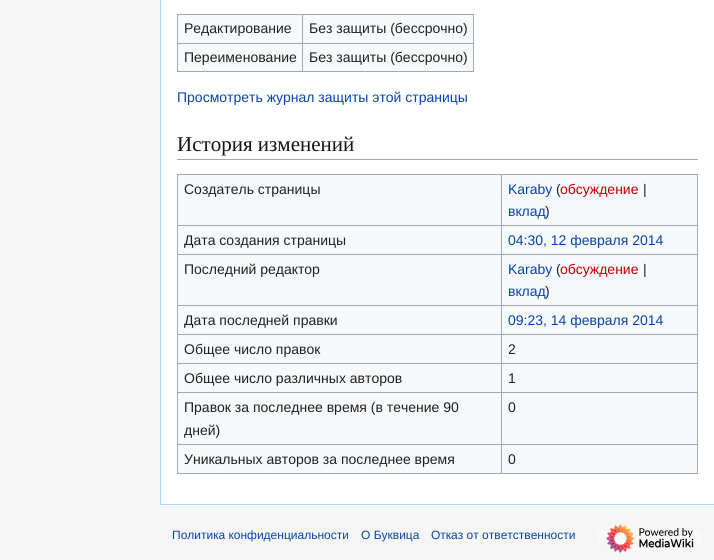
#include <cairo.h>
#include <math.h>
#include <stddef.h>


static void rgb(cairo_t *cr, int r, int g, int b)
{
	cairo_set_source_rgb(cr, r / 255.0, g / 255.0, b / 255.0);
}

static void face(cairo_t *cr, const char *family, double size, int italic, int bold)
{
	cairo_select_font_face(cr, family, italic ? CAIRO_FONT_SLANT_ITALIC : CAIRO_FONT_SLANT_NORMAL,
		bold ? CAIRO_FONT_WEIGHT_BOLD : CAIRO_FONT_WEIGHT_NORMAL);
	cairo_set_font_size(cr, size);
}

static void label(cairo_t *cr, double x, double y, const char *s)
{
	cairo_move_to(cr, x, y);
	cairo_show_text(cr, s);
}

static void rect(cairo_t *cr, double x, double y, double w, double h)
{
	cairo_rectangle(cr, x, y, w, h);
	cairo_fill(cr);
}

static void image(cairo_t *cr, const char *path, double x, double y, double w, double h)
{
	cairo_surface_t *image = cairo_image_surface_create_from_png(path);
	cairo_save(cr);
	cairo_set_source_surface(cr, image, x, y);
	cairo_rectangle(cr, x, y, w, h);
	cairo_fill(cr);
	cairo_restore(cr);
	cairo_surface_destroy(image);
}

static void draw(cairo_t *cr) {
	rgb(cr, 246, 246, 246);
	cairo_paint(cr);
	rgb(cr, 255, 255, 255);
	rect(cr, 161, 0, 553, 504);
	rgb(cr, 167, 215, 249);
	rect(cr, 160, 504, 554, 1);
	rect(cr, 160, 0, 1, 505);
	rgb(cr, 248, 249, 250);
	rect(cr, 178, 15, 295, 56);
	rgb(cr, 162, 169, 177);
	rect(cr, 177, 14, 297, 1);
	rect(cr, 473, 14, 1, 58);
	rect(cr, 177, 71, 297, 1);
	rect(cr, 177, 14, 1, 58);
	face(cr, "Liberation Sans", 14, 0, 0);
	rgb(cr, 32, 33, 34);
	label(cr, 184, 33, "Редактирование");
	rgb(cr, 162, 169, 177);
	rect(cr, 302, 43, 172, 1);
	rect(cr, 302, 43, 1, 29);
	rect(cr, 177, 43, 126, 1);
	rect(cr, 302, 14, 1, 30);
	rgb(cr, 32, 33, 34);
	label(cr, 309, 33, "Без защиты (бессрочно)");
	label(cr, 184, 62, "Переименование");
	label(cr, 309, 62, "Без защиты (бессрочно)");
	rgb(cr, 6, 69, 173);
	label(cr, 177, 102, "Просмотреть журнал защиты этой страницы");
	rgb(cr, 162, 169, 177);
	rect(cr, 177, 159, 521, 1);
	face(cr, "Liberation Serif", 21, 0, 0);
	rgb(cr, 16, 20, 24);
	label(cr, 177, 151, "История изменений");
	rgb(cr, 248, 249, 250);
	rect(cr, 178, 175, 519, 298);
	rgb(cr, 162, 169, 177);
	rect(cr, 177, 174, 521, 1);
	rect(cr, 697, 174, 1, 300);
	rect(cr, 177, 473, 521, 1);
	rect(cr, 177, 174, 1, 300);
	face(cr, "Liberation Sans", 14, 0, 0);
	rgb(cr, 32, 33, 34);
	label(cr, 184, 194, "Создатель страницы");
	rgb(cr, 162, 169, 177);
	rect(cr, 501, 225, 197, 1);
	rect(cr, 501, 254, 197, 1);
	rect(cr, 501, 305, 197, 1);
	rect(cr, 501, 334, 197, 1);
	rect(cr, 501, 363, 197, 1);
	rect(cr, 501, 392, 197, 1);
	rect(cr, 501, 444, 197, 1);
	rect(cr, 501, 444, 1, 30);
	rect(cr, 177, 444, 325, 1);
	rect(cr, 501, 392, 1, 53);
	rect(cr, 177, 392, 325, 1);
	rect(cr, 501, 363, 1, 30);
	rect(cr, 177, 363, 325, 1);
	rect(cr, 501, 334, 1, 30);
	rect(cr, 177, 334, 325, 1);
	rect(cr, 501, 305, 1, 30);
	rect(cr, 177, 305, 325, 1);
	rect(cr, 501, 254, 1, 52);
	rect(cr, 177, 254, 325, 1);
	rect(cr, 501, 225, 1, 30);
	rect(cr, 177, 225, 325, 1);
	rect(cr, 501, 174, 1, 52);
	rgb(cr, 6, 69, 173);
	label(cr, 508, 194, "Karaby");
	rgb(cr, 32, 33, 34);
	label(cr, 556, 194, "(");
	rgb(cr, 186, 0, 0);
	label(cr, 560, 194, "обсуждение");
	rgb(cr, 32, 33, 34);
	label(cr, 643, 194, "|");
	rgb(cr, 6, 69, 173);
	label(cr, 508, 216, "вклад");
	rgb(cr, 32, 33, 34);
	label(cr, 545, 216, ")");
	label(cr, 184, 245, "Дата создания страницы");
	rgb(cr, 6, 69, 173);
	label(cr, 508, 245, "04:30, 12 февраля 2014");
	rgb(cr, 32, 33, 34);
	label(cr, 184, 274, "Последний редактор");
	rgb(cr, 6, 69, 173);
	label(cr, 508, 274, "Karaby");
	rgb(cr, 32, 33, 34);
	label(cr, 556, 274, "(");
	rgb(cr, 186, 0, 0);
	label(cr, 560, 274, "обсуждение");
	rgb(cr, 32, 33, 34);
	label(cr, 643, 274, "|");
	rgb(cr, 6, 69, 173);
	label(cr, 508, 296, "вклад");
	rgb(cr, 32, 33, 34);
	label(cr, 545, 296, ")");
	label(cr, 184, 325, "Дата последней правки");
	rgb(cr, 6, 69, 173);
	label(cr, 508, 325, "09:23, 14 февраля 2014");
	rgb(cr, 32, 33, 34);
	label(cr, 184, 354, "Общее число правок");
	label(cr, 508, 354, "2");
	label(cr, 184, 383, "Общее число различных авторов");
	label(cr, 508, 383, "1");
	label(cr, 184, 412, "Правок за последнее время (в течение 90");
	label(cr, 184, 435, "дней)");
	label(cr, 508, 412, "0");
	label(cr, 184, 464, "Уникальных авторов за последнее время");
	label(cr, 508, 464, "0");
	face(cr, "Liberation Sans", 12, 0, 0);
	rgb(cr, 6, 69, 173);
	label(cr, 172, 539, "Политика конфиденциальности");
	label(cr, 361, 539, "О Буквица");
	label(cr, 431, 539, "Отказ от ответственности");
	rgb(cr, 248, 249, 250);
	rect(cr, 598, 530, 104, 14);
	image(cr, "image0.png", 606, 524, 88, 29);
}

int main(void) {
	cairo_surface_t *surface = cairo_image_surface_create(CAIRO_FORMAT_RGB24, 714, 560);
	cairo_t *cr = cairo_create(surface);
	cairo_font_options_t *options = cairo_font_options_create();
	cairo_font_options_set_hint_metrics(options, CAIRO_HINT_METRICS_OFF);
	cairo_font_options_set_hint_style(options, CAIRO_HINT_STYLE_NONE);
	cairo_set_font_options(cr, options);
	cairo_set_miter_limit(cr, 4);
	draw(cr);
	cairo_surface_write_to_png(surface, "render.png");
	cairo_font_options_destroy(options);
	cairo_destroy(cr);
	cairo_surface_destroy(surface);
	return 0;
}
